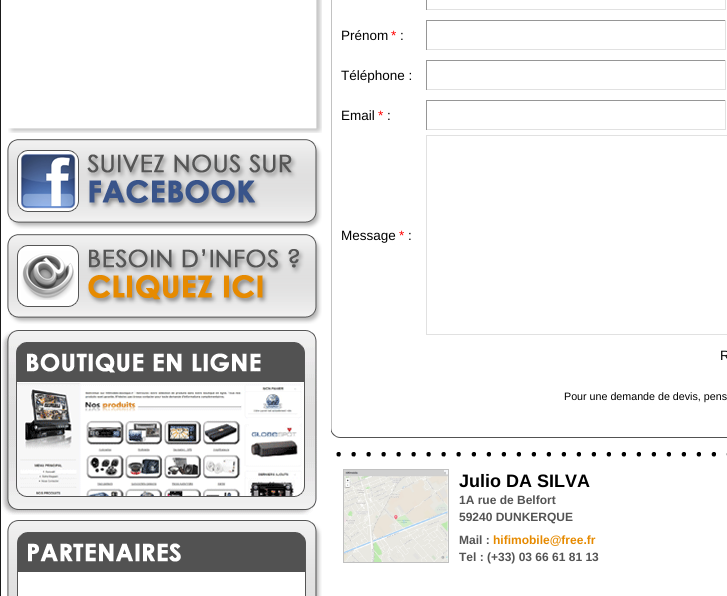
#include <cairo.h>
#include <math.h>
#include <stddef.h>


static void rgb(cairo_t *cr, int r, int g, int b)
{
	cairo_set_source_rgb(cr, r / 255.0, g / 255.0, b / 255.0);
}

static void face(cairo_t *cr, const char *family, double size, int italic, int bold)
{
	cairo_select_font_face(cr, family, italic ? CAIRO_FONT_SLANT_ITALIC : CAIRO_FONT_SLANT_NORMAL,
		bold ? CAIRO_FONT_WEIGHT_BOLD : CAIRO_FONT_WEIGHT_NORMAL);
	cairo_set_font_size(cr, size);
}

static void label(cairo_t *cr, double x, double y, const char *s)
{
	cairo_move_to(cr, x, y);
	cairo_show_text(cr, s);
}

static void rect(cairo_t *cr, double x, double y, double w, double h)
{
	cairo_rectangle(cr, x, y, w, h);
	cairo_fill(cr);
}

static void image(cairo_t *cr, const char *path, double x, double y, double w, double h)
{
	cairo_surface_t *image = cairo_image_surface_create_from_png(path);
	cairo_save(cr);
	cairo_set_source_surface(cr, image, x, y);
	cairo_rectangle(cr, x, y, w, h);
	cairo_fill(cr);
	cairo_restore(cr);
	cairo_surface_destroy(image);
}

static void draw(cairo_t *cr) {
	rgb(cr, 255, 255, 255);
	cairo_paint(cr);
	rgb(cr, 26, 26, 26);
	rect(cr, 0, 0, 1, 596);
	image(cr, "image0.png", 8, 0, 314, 133);
	image(cr, "image1.png", 7, 139, 315, 90);
	image(cr, "image2.png", 7, 234, 315, 90);
	image(cr, "image3.png", 2, 330, 315, 185);
	image(cr, "image4.png", 7, 520, 315, 59);
	image(cr, "image5.png", 7, 579, 11, 17);
	image(cr, "image6.png", 305, 579, 17, 17);
	rgb(cr, 194, 194, 194);
	rect(cr, 331, 0, 1, 428);
	rgb(cr, 225, 225, 225);
	rect(cr, 725, 0, 1, 10);
	rect(cr, 426, 9, 300, 1);
	rgb(cr, 150, 150, 150);
	rect(cr, 426, 0, 1, 10);
	face(cr, "Liberation Sans", 13.5, 0, 0);
	rgb(cr, 0, 0, 0);
	label(cr, 341, 40, "Prénom");
	rgb(cr, 255, 0, 0);
	label(cr, 391, 40, "*");
	rgb(cr, 0, 0, 0);
	label(cr, 400, 40, ":");
	rgb(cr, 150, 150, 150);
	rect(cr, 426, 20, 300, 1);
	rgb(cr, 225, 225, 225);
	rect(cr, 725, 20, 1, 30);
	rect(cr, 426, 49, 300, 1);
	rgb(cr, 150, 150, 150);
	rect(cr, 426, 20, 1, 30);
	rgb(cr, 0, 0, 0);
	label(cr, 341, 80, "Téléphone :");
	rgb(cr, 150, 150, 150);
	rect(cr, 426, 60, 300, 1);
	rgb(cr, 225, 225, 225);
	rect(cr, 725, 60, 1, 30);
	rect(cr, 426, 89, 300, 1);
	rgb(cr, 150, 150, 150);
	rect(cr, 426, 60, 1, 30);
	rgb(cr, 0, 0, 0);
	label(cr, 341, 120, "Email");
	rgb(cr, 255, 0, 0);
	label(cr, 378, 120, "*");
	rgb(cr, 0, 0, 0);
	label(cr, 387, 120, ":");
	rgb(cr, 150, 150, 150);
	rect(cr, 426, 100, 300, 1);
	rgb(cr, 225, 225, 225);
	rect(cr, 725, 100, 1, 30);
	rect(cr, 426, 129, 300, 1);
	rgb(cr, 150, 150, 150);
	rect(cr, 426, 100, 1, 30);
	rgb(cr, 0, 0, 0);
	label(cr, 341, 240, "Message");
	rgb(cr, 255, 0, 0);
	label(cr, 399, 240, "*");
	rgb(cr, 0, 0, 0);
	label(cr, 408, 240, ":");
	cairo_rectangle(cr, 426.5, 135.5, 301, 199);
	rgb(cr, 225, 225, 225);
	cairo_set_line_width(cr, 1);
	cairo_stroke(cr);
	rgb(cr, 0, 0, 0);
	label(cr, 720, 360, "R");
	face(cr, "Liberation Sans", 10.7, 0, 0);
	label(cr, 564, 400, "Pour une demande de devis, pens");
	image(cr, "image7.png", 331, 428, 396, 10);
	image(cr, "image8.png", 336, 452, 391, 5);
	cairo_rectangle(cr, 343.5, 469.5, 105, 93);
	rgb(cr, 192, 192, 192);
	cairo_stroke(cr);
	image(cr, "image9.png", 344, 470, 104, 92);
	face(cr, "Liberation Sans", 18, 0, 1);
	rgb(cr, 0, 0, 0);
	label(cr, 459, 487, "Julio DA SILVA");
	face(cr, "Liberation Sans", 12, 0, 1);
	rgb(cr, 84, 84, 84);
	label(cr, 459, 504, "1A rue de Belfort");
	label(cr, 459, 521, "59240 DUNKERQUE");
	label(cr, 459, 544, "Mail :");
	rgb(cr, 230, 138, 0);
	label(cr, 493, 544, "hifimobile@free.fr");
	rgb(cr, 84, 84, 84);
	label(cr, 459, 561, "Tel : (+33) 03 66 61 81 13");
}

int main(void) {
	cairo_surface_t *surface = cairo_image_surface_create(CAIRO_FORMAT_RGB24, 727, 596);
	cairo_t *cr = cairo_create(surface);
	cairo_font_options_t *options = cairo_font_options_create();
	cairo_font_options_set_hint_metrics(options, CAIRO_HINT_METRICS_OFF);
	cairo_font_options_set_hint_style(options, CAIRO_HINT_STYLE_NONE);
	cairo_set_font_options(cr, options);
	cairo_set_miter_limit(cr, 4);
	draw(cr);
	cairo_surface_write_to_png(surface, "render.png");
	cairo_font_options_destroy(options);
	cairo_destroy(cr);
	cairo_surface_destroy(surface);
	return 0;
}
